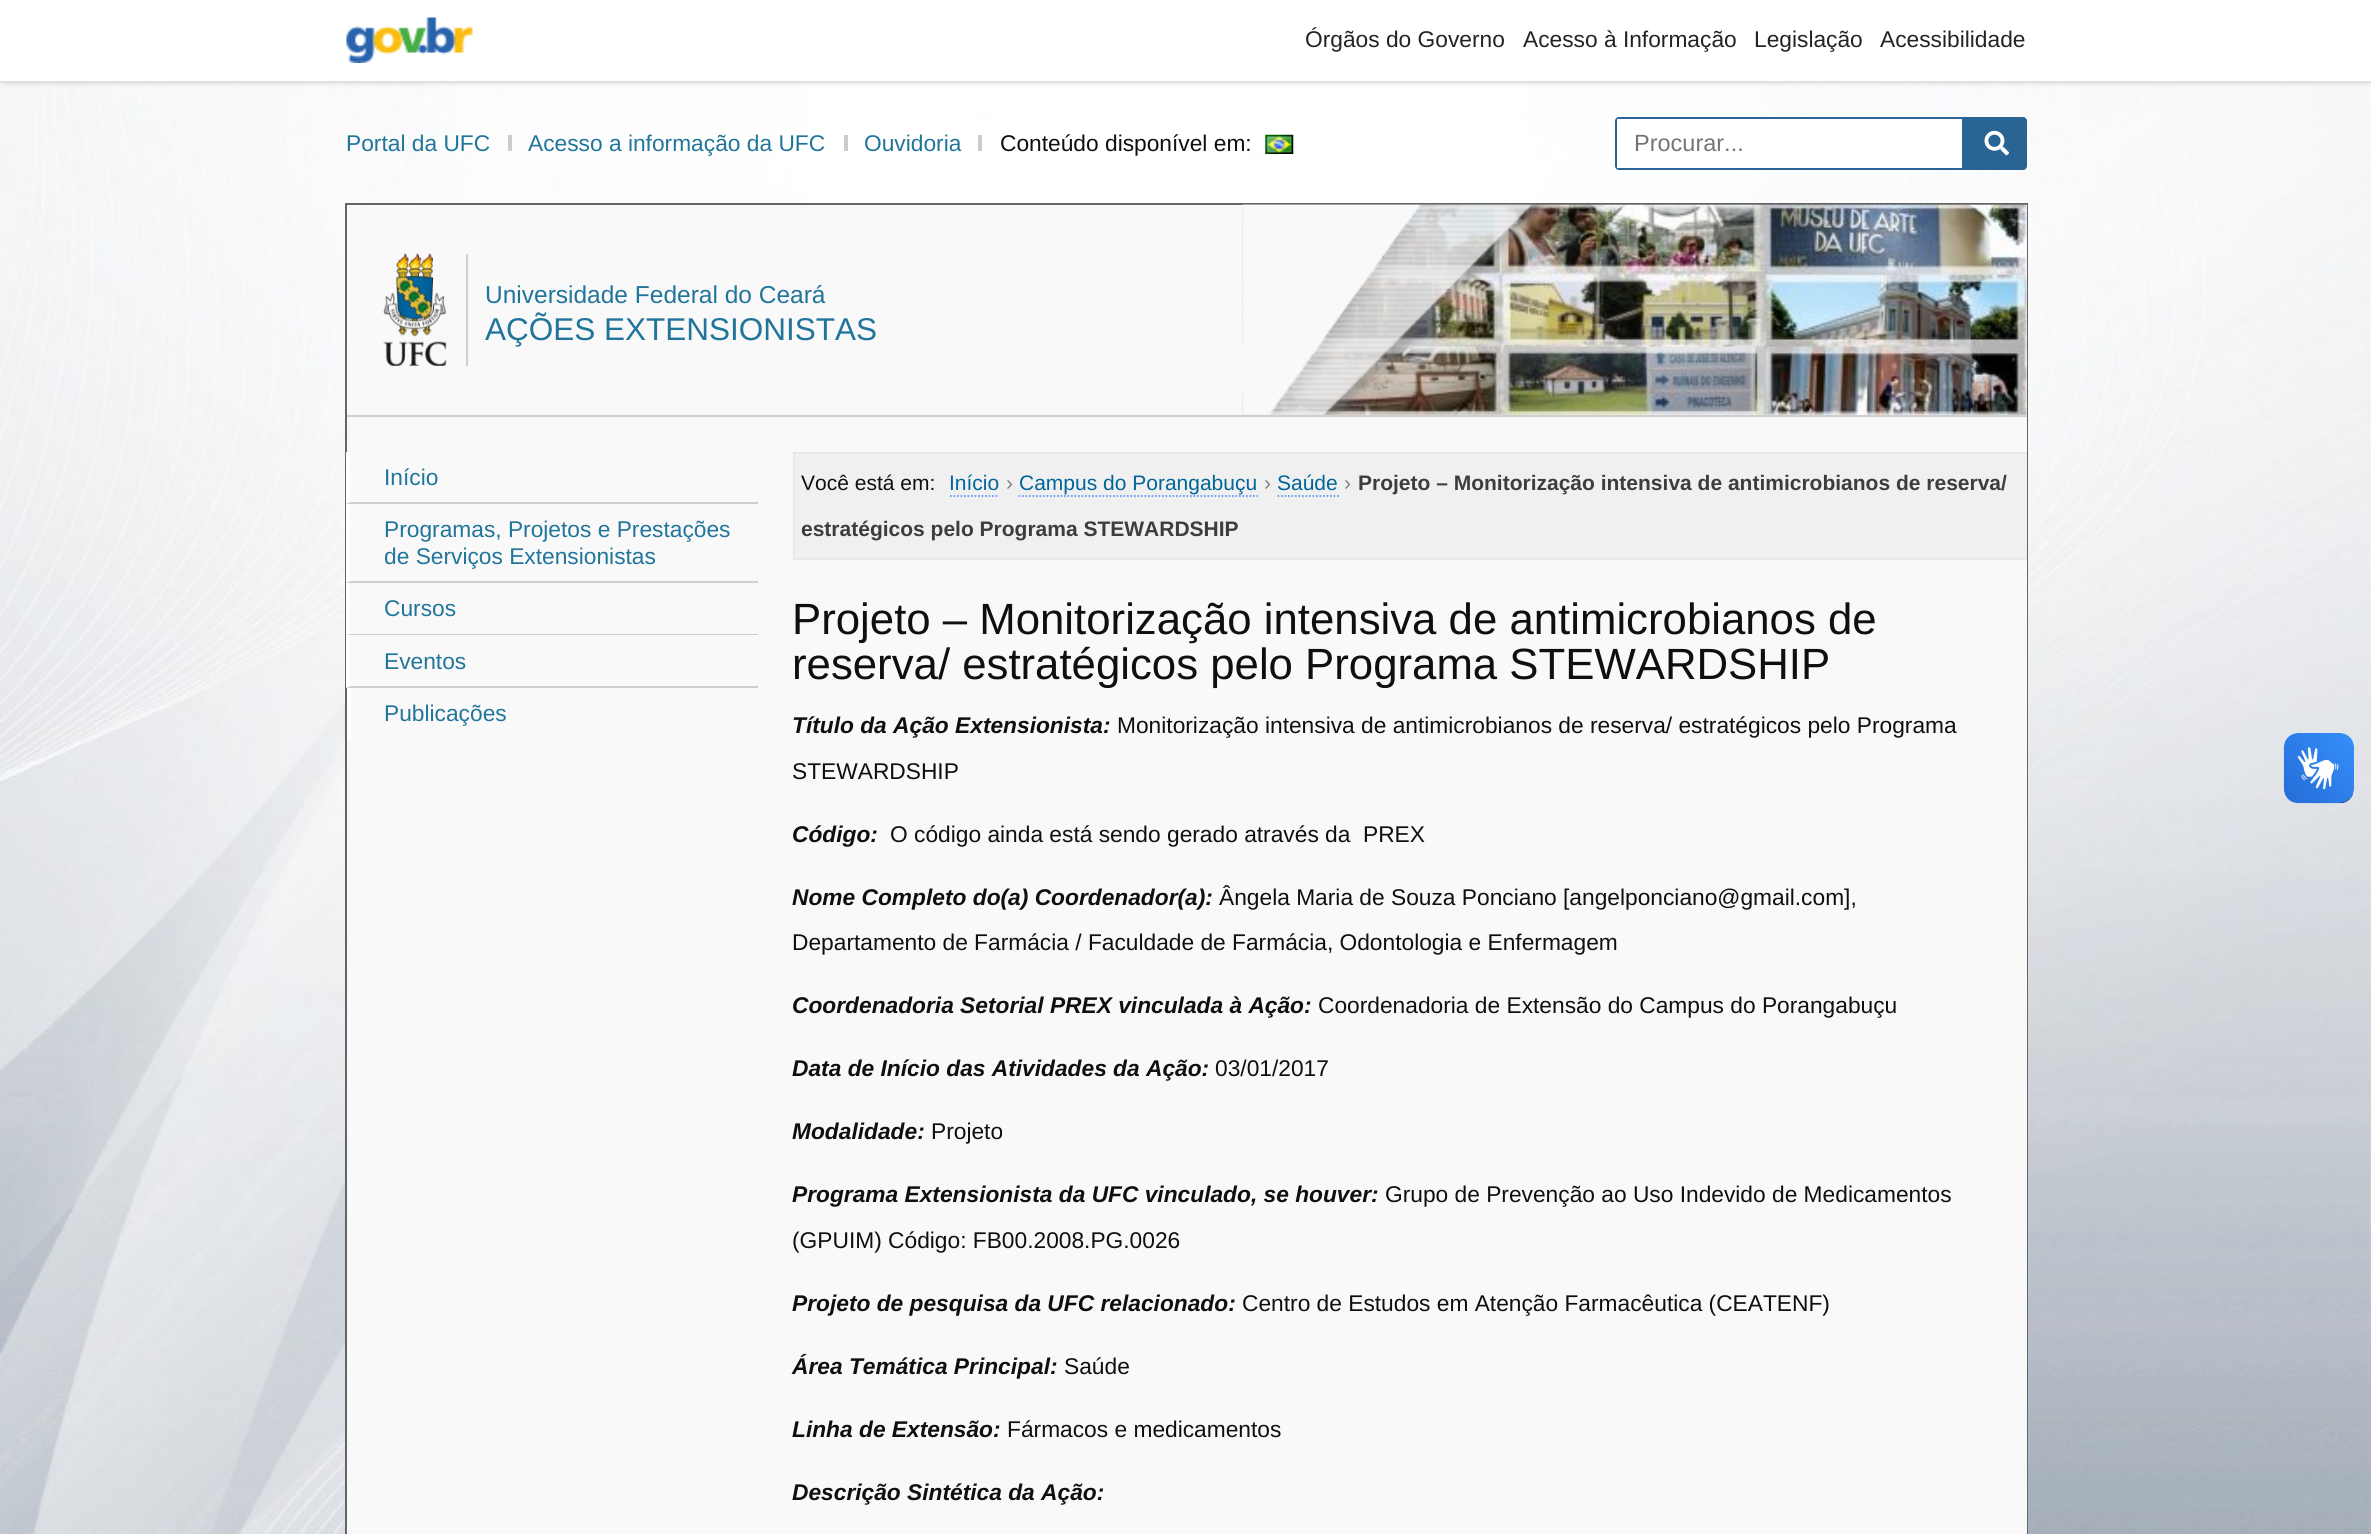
#include <cairo.h>
#include <math.h>
#include <stddef.h>


static void rgb(cairo_t *cr, int r, int g, int b)
{
	cairo_set_source_rgb(cr, r / 255.0, g / 255.0, b / 255.0);
}

static void face(cairo_t *cr, const char *family, double size, int italic, int bold)
{
	cairo_select_font_face(cr, family, italic ? CAIRO_FONT_SLANT_ITALIC : CAIRO_FONT_SLANT_NORMAL,
		bold ? CAIRO_FONT_WEIGHT_BOLD : CAIRO_FONT_WEIGHT_NORMAL);
	cairo_set_font_size(cr, size);
}

static void label(cairo_t *cr, double x, double y, const char *s)
{
	cairo_move_to(cr, x, y);
	cairo_show_text(cr, s);
}

static void rect(cairo_t *cr, double x, double y, double w, double h)
{
	cairo_rectangle(cr, x, y, w, h);
	cairo_fill(cr);
}

static void rrect(cairo_t *cr, double x, double y, double w, double h, double r)
{
	cairo_new_sub_path(cr);
	cairo_arc(cr, x + w - r, y + h - r, r, 0, M_PI / 2);
	cairo_arc(cr, x + r, y + h - r, r, M_PI / 2, M_PI);
	cairo_arc(cr, x + r, y + r, r, M_PI, 1.5 * M_PI);
	cairo_arc(cr, x + w - r, y + r, r, 1.5 * M_PI, 2 * M_PI);
	cairo_close_path(cr);
}

static void soft_shadow(cairo_t *cr, double x, double y, double w, double h, double r, double blur, double alpha)
{
	cairo_push_group_with_content(cr, CAIRO_CONTENT_ALPHA);
	cairo_set_operator(cr, CAIRO_OPERATOR_SOURCE);
	for (int i = 15; i >= -15 && fmin(w, h) + blur * i / 3 > 0; i -= 2) {
		double e = blur * i / 6;
		cairo_set_source_rgba(cr, 0, 0, 0, alpha * erfc((i - 1) / 8.5) / 2);
		rrect(cr, x - e, y - e, w + 2 * e, h + 2 * e, fmax(0, fmin(r + e + blur * .6, fmin(w, h) / 2 + e)));
		cairo_fill(cr);
	}
	cairo_pattern_t *soft = cairo_pop_group(cr);
	cairo_mask(cr, soft);
	cairo_pattern_destroy(soft);
}

static void image(cairo_t *cr, const char *path, double x, double y, double w, double h)
{
	cairo_surface_t *image = cairo_image_surface_create_from_png(path);
	cairo_save(cr);
	cairo_set_source_surface(cr, image, x, y);
	cairo_rectangle(cr, x, y, w, h);
	cairo_fill(cr);
	cairo_restore(cr);
	cairo_surface_destroy(image);
}

static void draw(cairo_t *cr) {
	rgb(cr, 255, 255, 255);
	cairo_paint(cr);
	image(cr, "image0.png", 0, 83, 2371, 1451);
	rgb(cr, 51, 51, 51);
	soft_shadow(cr, 5, 5, 2361, 72, 0, 4.5, 1);
	rgb(cr, 255, 255, 255);
	rect(cr, 0, 0, 2371, 81);
	rgb(cr, 223, 223, 223);
	rect(cr, 0, 81, 2371, 2);
	image(cr, "image1.png", 346, 17, 127, 46);
	face(cr, "Liberation Sans", 22.75, 0, 0);
	rgb(cr, 35, 35, 35);
	label(cr, 1305, 47, "Órgãos do Governo");
	label(cr, 1523, 47, "Acesso à Informação");
	label(cr, 1754, 47, "Legislação");
	label(cr, 1880, 47, "Acessibilidade");
	rgb(cr, 33, 117, 155);
	label(cr, 346, 151, "Portal da UFC");
	rgb(cr, 204, 204, 204);
	rect(cr, 508, 135, 4, 16);
	rgb(cr, 33, 117, 155);
	label(cr, 528, 151, "Acesso a informação da UFC");
	rgb(cr, 204, 204, 204);
	rect(cr, 844, 135, 4, 16);
	rgb(cr, 33, 117, 155);
	label(cr, 864, 151, "Ouvidoria");
	rgb(cr, 204, 204, 204);
	rect(cr, 978, 135, 4, 16);
	rgb(cr, 15, 15, 15);
	label(cr, 1000, 151, "Conteúdo disponível em:");
	image(cr, "image2.png", 1265, 134, 29, 20);
	rrect(cr, 1616, 118, 410, 51, 3);
	rgb(cr, 41, 100, 148);
	cairo_stroke(cr);
	rect(cr, 1962, 119, 63, 49);
	rgb(cr, 255, 255, 255);
	rect(cr, 1617, 119, 345, 49);
	face(cr, "Liberation Sans", 23.5, 0, 0);
	rgb(cr, 117, 117, 117);
	label(cr, 1634, 151, "Procurar...");
	image(cr, "image3.png", 1984, 130, 25, 26);
	cairo_rectangle(cr, 346, 204, 1681, 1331);
	rgb(cr, 101, 101, 101);
	cairo_stroke(cr);
	rgb(cr, 249, 249, 249);
	rect(cr, 347, 205, 1680, 1329);
	rgb(cr, 207, 207, 207);
	rect(cr, 347, 415, 1680, 2);
	rect(cr, 466, 254, 2, 112);
	image(cr, "image4.png", 383, 253, 64, 113);
	face(cr, "Liberation Sans", 24.5, 0, 0);
	rgb(cr, 33, 117, 155);
	label(cr, 485, 303, "Universidade Federal do Ceará");
	face(cr, "Liberation Sans", 31.5, 0, 0);
	label(cr, 485, 340, "AÇÕES EXTENSIONISTAS");
	image(cr, "image5.png", 1242, 204, 785, 211);
	image(cr, "image6.png", 1242, 204, 308, 211);
	rgb(cr, 207, 207, 207);
	cairo_new_path(cr);
	cairo_move_to(cr, 758, 504);
	cairo_line_to(cr, 346, 504);
	cairo_line_to(cr, 350, 502);
	cairo_line_to(cr, 758, 502);
	cairo_close_path(cr);
	cairo_fill(cr);
	rgb(cr, 255, 255, 255);
	cairo_new_path(cr);
	cairo_move_to(cr, 346, 504);
	cairo_line_to(cr, 346, 452);
	cairo_line_to(cr, 350, 452);
	cairo_line_to(cr, 350, 502);
	cairo_close_path(cr);
	cairo_fill(cr);
	face(cr, "Liberation Sans", 22.75, 0, 0);
	rgb(cr, 33, 117, 155);
	label(cr, 384, 485, "Início");
	rgb(cr, 207, 207, 207);
	cairo_new_path(cr);
	cairo_move_to(cr, 758, 583);
	cairo_line_to(cr, 346, 583);
	cairo_line_to(cr, 350, 581);
	cairo_line_to(cr, 758, 581);
	cairo_close_path(cr);
	cairo_fill(cr);
	rgb(cr, 255, 255, 255);
	cairo_new_path(cr);
	cairo_move_to(cr, 346, 583);
	cairo_line_to(cr, 346, 504);
	cairo_line_to(cr, 350, 504);
	cairo_line_to(cr, 350, 581);
	cairo_close_path(cr);
	cairo_fill(cr);
	rgb(cr, 33, 117, 155);
	label(cr, 384, 537, "Programas, Projetos e Prestações");
	label(cr, 384, 564, "de Serviços Extensionistas");
	rgb(cr, 207, 207, 207);
	cairo_new_path(cr);
	cairo_move_to(cr, 758, 635);
	cairo_line_to(cr, 346, 635);
	cairo_line_to(cr, 350, 634);
	cairo_line_to(cr, 758, 634);
	cairo_close_path(cr);
	cairo_fill(cr);
	rgb(cr, 255, 255, 255);
	cairo_new_path(cr);
	cairo_move_to(cr, 346, 635);
	cairo_line_to(cr, 346, 583);
	cairo_line_to(cr, 350, 583);
	cairo_line_to(cr, 350, 634);
	cairo_close_path(cr);
	cairo_fill(cr);
	rgb(cr, 33, 117, 155);
	label(cr, 384, 616, "Cursos");
	rgb(cr, 207, 207, 207);
	cairo_new_path(cr);
	cairo_move_to(cr, 758, 688);
	cairo_line_to(cr, 346, 688);
	cairo_line_to(cr, 350, 686);
	cairo_line_to(cr, 758, 686);
	cairo_close_path(cr);
	cairo_fill(cr);
	rgb(cr, 255, 255, 255);
	cairo_new_path(cr);
	cairo_move_to(cr, 346, 688);
	cairo_line_to(cr, 346, 635);
	cairo_line_to(cr, 350, 635);
	cairo_line_to(cr, 350, 686);
	cairo_close_path(cr);
	cairo_fill(cr);
	rgb(cr, 33, 117, 155);
	label(cr, 384, 669, "Eventos");
	rgb(cr, 255, 255, 255);
	rect(cr, 347, 688, 4, 51);
	rgb(cr, 33, 117, 155);
	label(cr, 384, 721, "Publicações");
	rgb(cr, 240, 240, 240);
	rect(cr, 795, 454, 1232, 104);
	rgb(cr, 232, 232, 232);
	rect(cr, 793, 452, 1234, 2);
	rect(cr, 793, 558, 1234, 2);
	rect(cr, 793, 452, 2, 108);
	face(cr, "Liberation Sans", 21, 0, 0);
	rgb(cr, 15, 15, 15);
	label(cr, 801, 490, "Você está em:");
	rgb(cr, 0, 102, 153);
	label(cr, 949, 490, "Início");
	cairo_new_path(cr);
	cairo_move_to(cr, 950, 496);
	cairo_line_to(cr, 999, 496);
	rgb(cr, 102, 153, 255);
	cairo_set_line_width(cr, 1.8);
	cairo_set_dash(cr, (double[]){1.75, 1.75}, 2, 0);
	cairo_stroke(cr);
	rgb(cr, 128, 128, 128);
	label(cr, 1006, 490, "›");
	rgb(cr, 0, 102, 153);
	label(cr, 1019, 490, "Campus do Porangabuçu");
	cairo_new_path(cr);
	cairo_move_to(cr, 1018.5, 496);
	cairo_line_to(cr, 1258, 496);
	rgb(cr, 102, 153, 255);
	cairo_stroke(cr);
	rgb(cr, 128, 128, 128);
	label(cr, 1264, 490, "›");
	rgb(cr, 0, 102, 153);
	label(cr, 1277, 490, "Saúde");
	cairo_new_path(cr);
	cairo_move_to(cr, 1277.5, 496);
	cairo_line_to(cr, 1339, 496);
	rgb(cr, 102, 153, 255);
	cairo_stroke(cr);
	rgb(cr, 128, 128, 128);
	label(cr, 1344, 490, "›");
	face(cr, "Liberation Sans", 21, 0, 1);
	rgb(cr, 61, 61, 61);
	label(cr, 1358, 490, "Projeto – Monitorização intensiva de antimicrobianos de reserva/");
	label(cr, 801, 536, "estratégicos pelo Programa STEWARDSHIP");
	face(cr, "Liberation Sans", 43.75, 0, 0);
	rgb(cr, 15, 15, 15);
	label(cr, 792, 634, "Projeto – Monitorização intensiva de antimicrobianos de");
	label(cr, 792, 679, "reserva/ estratégicos pelo Programa STEWARDSHIP");
	face(cr, "Liberation Sans", 22.75, 1, 1);
	label(cr, 792, 733, "Título da Ação Extensionista:");
	face(cr, "Liberation Sans", 22.75, 0, 0);
	label(cr, 1117, 733, "Monitorização intensiva de antimicrobianos de reserva/ estratégicos pelo Programa");
	label(cr, 792, 779, "STEWARDSHIP");
	face(cr, "Liberation Sans", 22.75, 1, 1);
	label(cr, 792, 842, "Código:");
	face(cr, "Liberation Sans", 22.75, 0, 0);
	label(cr, 890, 842, "O código ainda está sendo gerado através da  PREX");
	face(cr, "Liberation Sans", 22.75, 1, 1);
	label(cr, 792, 905, "Nome Completo do(a) Coordenador(a):");
	face(cr, "Liberation Sans", 22.75, 0, 0);
	label(cr, 1219, 905, "Ângela Maria de Souza Ponciano [angelponciano@gmail.com],");
	label(cr, 792, 950, "Departamento de Farmácia / Faculdade de Farmácia, Odontologia e Enfermagem");
	face(cr, "Liberation Sans", 22.75, 1, 1);
	label(cr, 792, 1013, "Coordenadoria Setorial PREX vinculada à Ação:");
	face(cr, "Liberation Sans", 22.75, 0, 0);
	label(cr, 1318, 1013, "Coordenadoria de Extensão do Campus do Porangabuçu");
	face(cr, "Liberation Sans", 22.75, 1, 1);
	label(cr, 792, 1076, "Data de Início das Atividades da Ação:");
	face(cr, "Liberation Sans", 22.75, 0, 0);
	label(cr, 1215, 1076, "03/01/2017");
	face(cr, "Liberation Sans", 22.75, 1, 1);
	label(cr, 792, 1139, "Modalidade:");
	face(cr, "Liberation Sans", 22.75, 0, 0);
	label(cr, 931, 1139, "Projeto");
	face(cr, "Liberation Sans", 22.75, 1, 1);
	label(cr, 792, 1202, "Programa Extensionista da UFC vinculado, se houver:");
	face(cr, "Liberation Sans", 22.75, 0, 0);
	label(cr, 1385, 1202, "Grupo de Prevenção ao Uso Indevido de Medicamentos");
	label(cr, 792, 1248, "(GPUIM) Código: FB00.2008.PG.0026");
	face(cr, "Liberation Sans", 22.75, 1, 1);
	label(cr, 792, 1311, "Projeto de pesquisa da UFC relacionado:");
	face(cr, "Liberation Sans", 22.75, 0, 0);
	label(cr, 1242, 1311, "Centro de Estudos em Atenção Farmacêutica (CEATENF)");
	face(cr, "Liberation Sans", 22.75, 1, 1);
	label(cr, 792, 1374, "Área Temática Principal:");
	face(cr, "Liberation Sans", 22.75, 0, 0);
	label(cr, 1064, 1374, "Saúde");
	face(cr, "Liberation Sans", 22.75, 1, 1);
	label(cr, 792, 1437, "Linha de Extensão:");
	face(cr, "Liberation Sans", 22.75, 0, 0);
	label(cr, 1007, 1437, "Fármacos e medicamentos");
	face(cr, "Liberation Sans", 22.75, 1, 1);
	label(cr, 792, 1500, "Descrição Sintética da Ação:");
	image(cr, "image7.png", 2283, 733, 71, 71);
	image(cr, "image8.png", 2284, 733, 70, 70);
}

int main(void) {
	cairo_surface_t *surface = cairo_image_surface_create(CAIRO_FORMAT_RGB24, 2371, 1534);
	cairo_t *cr = cairo_create(surface);
	cairo_font_options_t *options = cairo_font_options_create();
	cairo_font_options_set_hint_metrics(options, CAIRO_HINT_METRICS_OFF);
	cairo_font_options_set_hint_style(options, CAIRO_HINT_STYLE_NONE);
	cairo_set_font_options(cr, options);
	cairo_set_miter_limit(cr, 4);
	draw(cr);
	cairo_surface_write_to_png(surface, "render.png");
	cairo_font_options_destroy(options);
	cairo_destroy(cr);
	cairo_surface_destroy(surface);
	return 0;
}
